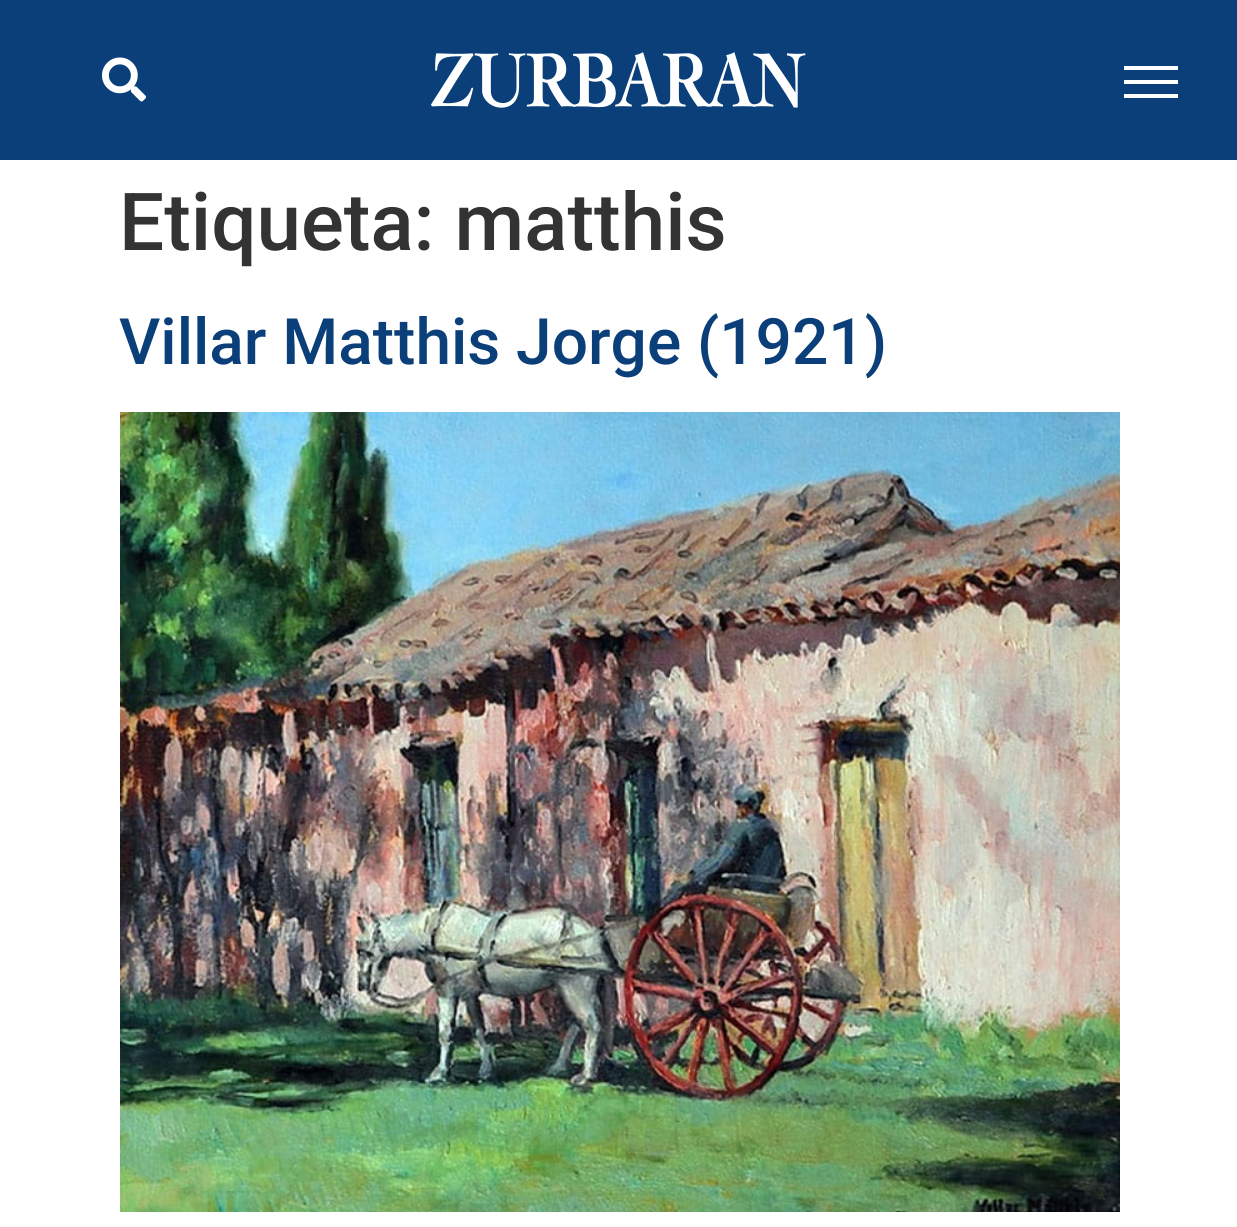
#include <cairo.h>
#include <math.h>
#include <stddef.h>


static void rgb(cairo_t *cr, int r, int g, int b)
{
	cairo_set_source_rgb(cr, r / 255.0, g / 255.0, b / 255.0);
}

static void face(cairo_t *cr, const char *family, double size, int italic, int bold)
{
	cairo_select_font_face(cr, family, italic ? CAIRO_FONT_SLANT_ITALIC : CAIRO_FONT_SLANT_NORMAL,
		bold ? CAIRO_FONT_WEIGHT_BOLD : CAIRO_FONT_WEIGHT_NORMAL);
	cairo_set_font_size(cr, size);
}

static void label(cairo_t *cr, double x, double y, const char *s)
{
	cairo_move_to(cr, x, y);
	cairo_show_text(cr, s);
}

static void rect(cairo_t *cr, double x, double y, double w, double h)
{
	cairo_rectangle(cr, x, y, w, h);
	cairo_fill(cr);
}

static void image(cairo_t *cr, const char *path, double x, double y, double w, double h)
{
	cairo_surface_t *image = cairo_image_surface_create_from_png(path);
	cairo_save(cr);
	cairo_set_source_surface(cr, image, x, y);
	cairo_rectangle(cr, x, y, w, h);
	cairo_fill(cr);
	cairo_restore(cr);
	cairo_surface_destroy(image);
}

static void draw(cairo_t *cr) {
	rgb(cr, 255, 255, 255);
	cairo_paint(cr);
	rgb(cr, 10, 63, 122);
	rect(cr, 0, 0, 1237, 160);
	image(cr, "image0.png", 102, 57, 44, 45);
	image(cr, "image1.png", 431, 52, 375, 56);
	rgb(cr, 255, 255, 255);
	rect(cr, 1124, 66, 54, 4);
	rect(cr, 1124, 80, 54, 4);
	rect(cr, 1124, 94, 54, 4);
	face(cr, "Roboto Medium", 80, 0, 0);
	rgb(cr, 51, 51, 51);
	label(cr, 119, 250, "Etiqueta: matthis");
	face(cr, "Roboto Medium", 64, 0, 0);
	rgb(cr, 10, 63, 122);
	label(cr, 119, 364, "Villar Matthis Jorge (1921)");
	image(cr, "image2.png", 120, 412, 1000, 800);
}

int main(void) {
	cairo_surface_t *surface = cairo_image_surface_create(CAIRO_FORMAT_RGB24, 1237, 1227);
	cairo_t *cr = cairo_create(surface);
	cairo_font_options_t *options = cairo_font_options_create();
	cairo_font_options_set_hint_metrics(options, CAIRO_HINT_METRICS_OFF);
	cairo_font_options_set_hint_style(options, CAIRO_HINT_STYLE_NONE);
	cairo_set_font_options(cr, options);
	cairo_set_miter_limit(cr, 4);
	draw(cr);
	cairo_surface_write_to_png(surface, "render.png");
	cairo_font_options_destroy(options);
	cairo_destroy(cr);
	cairo_surface_destroy(surface);
	return 0;
}
